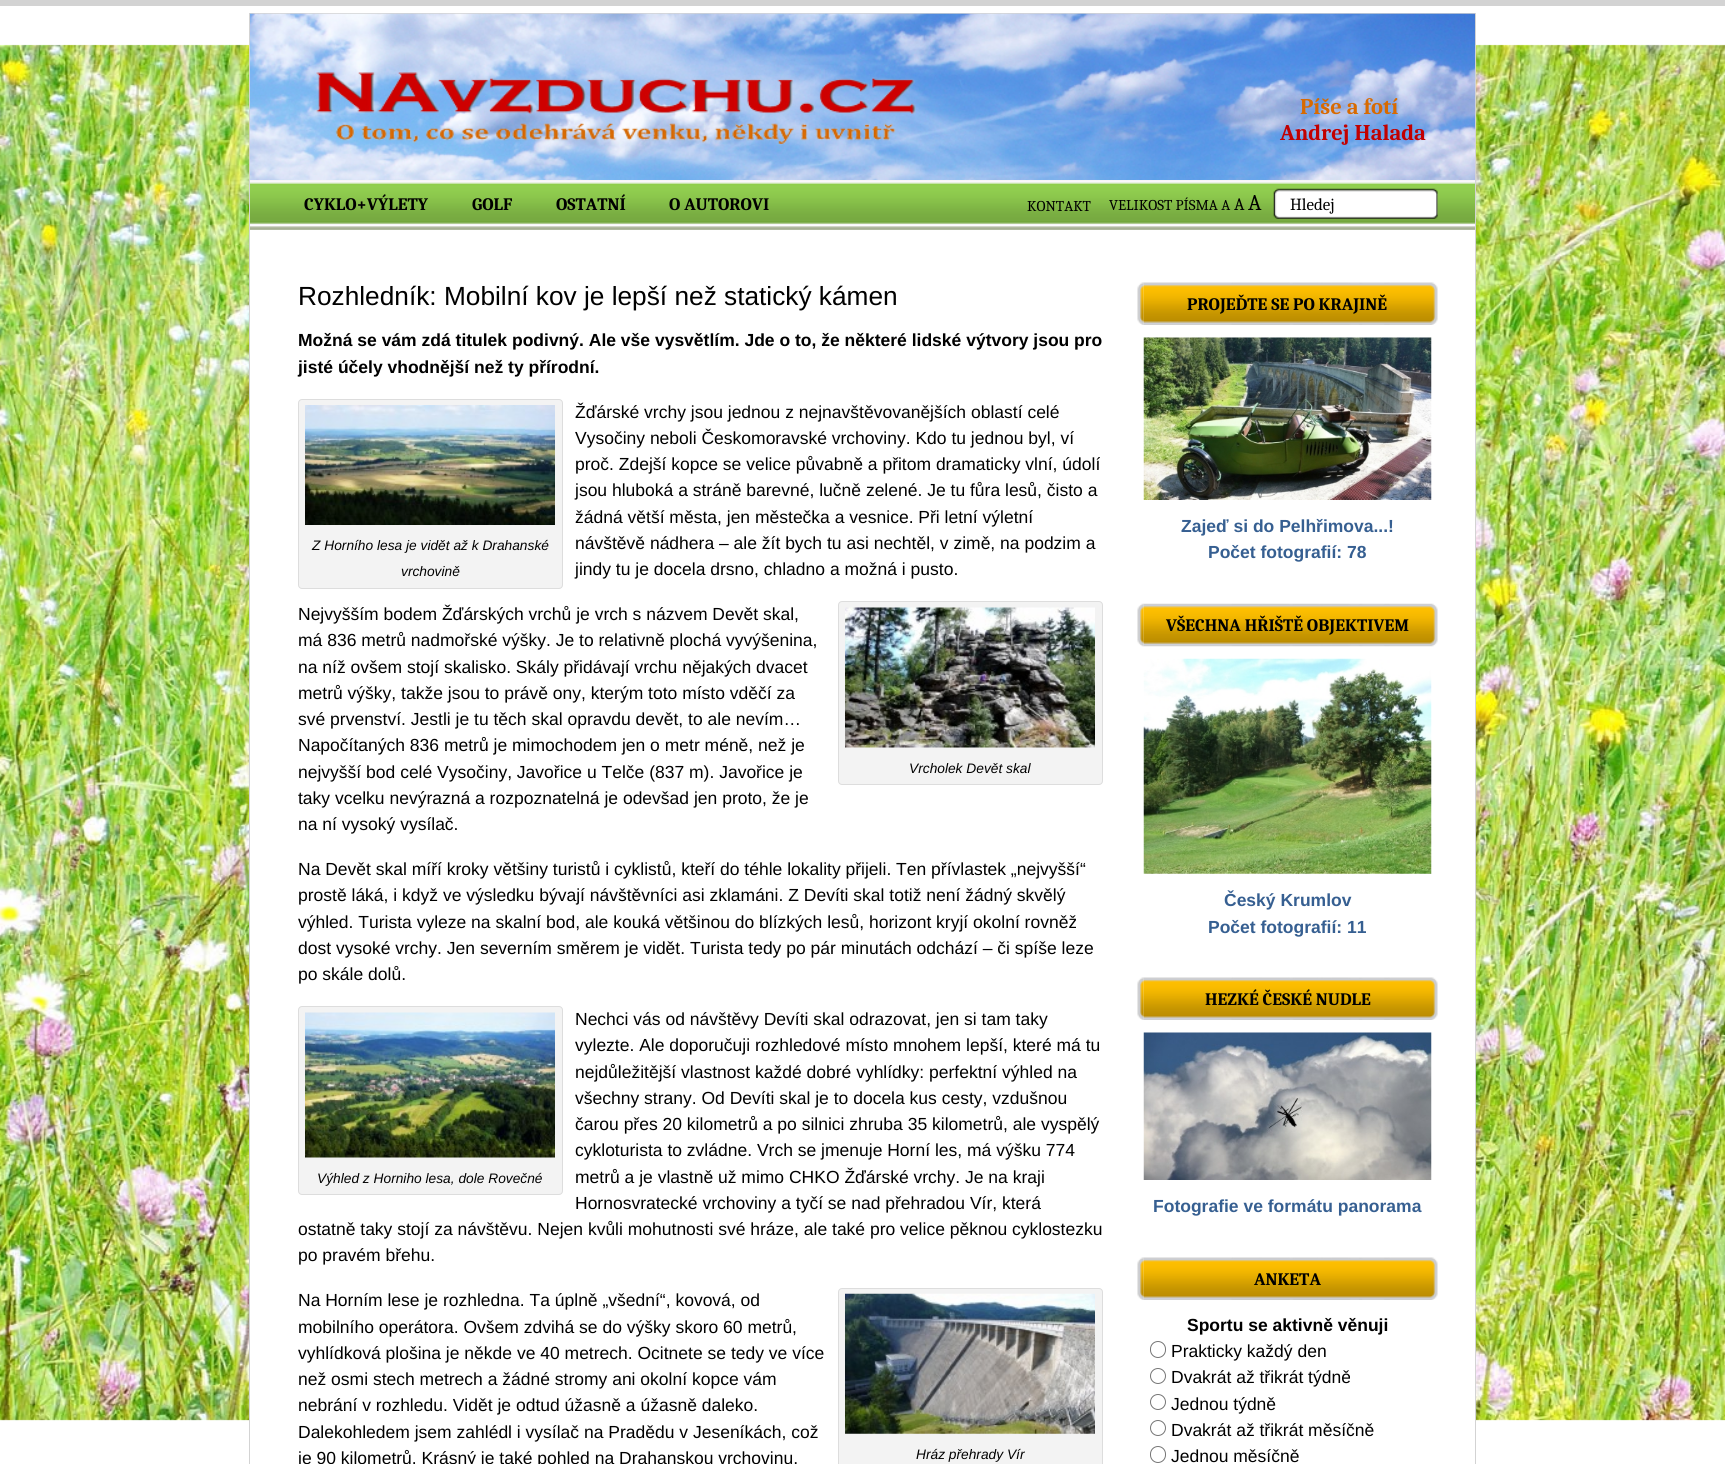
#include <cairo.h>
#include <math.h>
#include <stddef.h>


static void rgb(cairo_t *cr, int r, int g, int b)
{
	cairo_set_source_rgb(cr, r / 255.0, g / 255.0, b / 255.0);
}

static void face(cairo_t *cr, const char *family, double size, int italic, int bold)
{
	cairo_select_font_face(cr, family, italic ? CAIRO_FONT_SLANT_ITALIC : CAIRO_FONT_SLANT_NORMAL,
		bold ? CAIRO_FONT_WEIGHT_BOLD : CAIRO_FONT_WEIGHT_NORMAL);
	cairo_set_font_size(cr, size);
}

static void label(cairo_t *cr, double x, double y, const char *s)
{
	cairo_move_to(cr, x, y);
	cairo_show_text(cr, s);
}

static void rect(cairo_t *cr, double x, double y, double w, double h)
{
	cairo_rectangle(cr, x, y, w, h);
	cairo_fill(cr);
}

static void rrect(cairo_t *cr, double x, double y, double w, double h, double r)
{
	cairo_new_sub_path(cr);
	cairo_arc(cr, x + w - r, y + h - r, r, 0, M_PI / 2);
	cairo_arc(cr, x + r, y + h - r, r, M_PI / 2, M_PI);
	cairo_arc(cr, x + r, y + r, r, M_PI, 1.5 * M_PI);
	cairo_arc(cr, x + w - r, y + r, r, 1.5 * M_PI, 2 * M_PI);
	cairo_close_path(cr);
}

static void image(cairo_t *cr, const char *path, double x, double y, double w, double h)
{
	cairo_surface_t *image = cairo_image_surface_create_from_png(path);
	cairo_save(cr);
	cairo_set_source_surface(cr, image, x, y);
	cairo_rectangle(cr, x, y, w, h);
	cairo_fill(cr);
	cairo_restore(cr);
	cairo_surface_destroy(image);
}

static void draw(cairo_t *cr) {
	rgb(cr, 255, 255, 255);
	cairo_paint(cr);
	image(cr, "image0.png", 0, 44, 1725, 1377);
	rgb(cr, 211, 211, 211);
	rect(cr, 0, 0, 1725, 6);
	rgb(cr, 255, 255, 255);
	rect(cr, 250, 180, 1225, 1241);
	cairo_rectangle(cr, 249.5, 13.5, 1226, 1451);
	rgb(cr, 211, 211, 211);
	cairo_set_line_width(cr, 1);
	cairo_stroke(cr);
	image(cr, "image1.png", 250, 13, 1225, 167);
	image(cr, "image2.png", 316, 72, 600, 73);
	face(cr, "Caladea", 22.5, 0, 1);
	rgb(cr, 216, 106, 0);
	label(cr, 1300, 114, "Píše a fotí");
	rgb(cr, 194, 0, 0);
	label(cr, 1280, 140, "Andrej Halada");
	image(cr, "image3.png", 250, 180, 1225, 50);
	face(cr, "Caladea", 17.5, 0, 1);
	rgb(cr, 0, 0, 0);
	label(cr, 304, 210, "CYKLO+VÝLETY");
	label(cr, 472, 210, "GOLF");
	label(cr, 556, 210, "OSTATNÍ");
	label(cr, 669, 210, "O AUTOROVI");
	face(cr, "Caladea", 15, 0, 0);
	label(cr, 1027, 211, "KONTAKT");
	label(cr, 1109, 210, "VELIKOST PÍSMA A");
	face(cr, "Caladea", 17.5, 0, 0);
	label(cr, 1234, 210, "A");
	face(cr, "Caladea", 22.5, 0, 0);
	label(cr, 1248, 210, "A");
	image(cr, "image4.png", 1273, 188, 165, 31);
	face(cr, "Caladea", 17, 0, 0);
	label(cr, 1290, 210, "Hledej");
	face(cr, "Liberation Sans", 26.25, 0, 0);
	label(cr, 298, 305, "Rozhledník: Mobilní kov je lepší než statický kámen");
	face(cr, "Liberation Sans", 17.5, 0, 1);
	label(cr, 298, 346, "Možná se vám zdá titulek podivný. Ale vše vysvětlím. Jde o to, že některé lidské výtvory jsou pro");
	label(cr, 298, 373, "jisté účely vhodnější než ty přírodní.");
	rgb(cr, 243, 243, 243);
	rrect(cr, 298.5, 399.5, 264, 189, 3.5);
	cairo_fill_preserve(cr);
	rgb(cr, 221, 221, 221);
	cairo_stroke(cr);
	image(cr, "image5.png", 305, 405, 250, 120);
	face(cr, "Liberation Sans", 13.75, 1, 0);
	rgb(cr, 0, 0, 0);
	label(cr, 312, 550, "Z Horního lesa je vidět až k Drahanské");
	label(cr, 401, 576, "vrchovině");
	face(cr, "Liberation Sans", 17.5, 0, 0);
	label(cr, 575, 418, "Žďárské vrchy jsou jednou z nejnavštěvovanějších oblastí celé");
	label(cr, 575, 444, "Vysočiny neboli Českomoravské vrchoviny. Kdo tu jednou byl, ví");
	label(cr, 575, 470, "proč. Zdejší kopce se velice půvabně a přitom dramaticky vlní, údolí");
	label(cr, 575, 496, "jsou hluboká a stráně barevné, lučně zelené. Je tu fůra lesů, čisto a");
	label(cr, 575, 523, "žádná větší města, jen městečka a vesnice. Při letní výletní");
	label(cr, 575, 549, "návštěvě nádhera – ale žít bych tu asi nechtěl, v zimě, na podzim a");
	label(cr, 575, 575, "jindy tu je docela drsno, chladno a možná i pusto.");
	label(cr, 298, 620, "Nejvyšším bodem Žďárských vrchů je vrch s názvem Devět skal,");
	label(cr, 298, 646, "má 836 metrů nadmořské výšky. Je to relativně plochá vyvýšenina,");
	label(cr, 298, 673, "na níž ovšem stojí skalisko. Skály přidávají vrchu nějakých dvacet");
	label(cr, 298, 699, "metrů výšky, takže jsou to právě ony, kterým toto místo vděčí za");
	label(cr, 298, 725, "své prvenství. Jestli je tu těch skal opravdu devět, to ale nevím…");
	label(cr, 298, 751, "Napočítaných 836 metrů je mimochodem jen o metr méně, než je");
	label(cr, 298, 778, "nejvyšší bod celé Vysočiny, Javořice u Telče (837 m). Javořice je");
	label(cr, 298, 804, "taky vcelku nevýrazná a rozpoznatelná je odevšad jen proto, že je");
	label(cr, 298, 830, "na ní vysoký vysílač.");
	rgb(cr, 243, 243, 243);
	rrect(cr, 838.5, 601.5, 264, 183, 3.5);
	cairo_fill_preserve(cr);
	rgb(cr, 221, 221, 221);
	cairo_stroke(cr);
	image(cr, "image6.png", 845, 607, 250, 141);
	face(cr, "Liberation Sans", 13.75, 1, 0);
	rgb(cr, 0, 0, 0);
	label(cr, 909, 773, "Vrcholek Devět skal");
	face(cr, "Liberation Sans", 17.5, 0, 0);
	label(cr, 298, 875, "Na Devět skal míří kroky většiny turistů i cyklistů, kteří do téhle lokality přijeli. Ten přívlastek „nejvyšší“");
	label(cr, 298, 901, "prostě láká, i když ve výsledku bývají návštěvníci asi zklamáni. Z Devíti skal totiž není žádný skvělý");
	label(cr, 298, 928, "výhled. Turista vyleze na skalní bod, ale kouká většinou do blízkých lesů, horizont kryjí okolní rovněž");
	label(cr, 298, 954, "dost vysoké vrchy. Jen severním směrem je vidět. Turista tedy po pár minutách odchází – či spíše leze");
	label(cr, 298, 980, "po skále dolů.");
	label(cr, 575, 1025, "Nechci vás od návštěvy Devíti skal odrazovat, jen si tam taky");
	label(cr, 575, 1051, "vylezte. Ale doporučuji rozhledové místo mnohem lepší, které má tu");
	label(cr, 575, 1078, "nejdůležitější vlastnost každé dobré vyhlídky: perfektní výhled na");
	label(cr, 575, 1104, "všechny strany. Od Devíti skal je to docela kus cesty, vzdušnou");
	label(cr, 575, 1130, "čarou přes 20 kilometrů a po silnici zhruba 35 kilometrů, ale vyspělý");
	label(cr, 575, 1156, "cykloturista to zvládne. Vrch se jmenuje Horní les, má výšku 774");
	label(cr, 575, 1183, "metrů a je vlastně už mimo CHKO Žďárské vrchy. Je na kraji");
	label(cr, 575, 1209, "Hornosvratecké vrchoviny a tyčí se nad přehradou Vír, která");
	label(cr, 298, 1235, "ostatně taky stojí za návštěvu. Nejen kvůli mohutnosti své hráze, ale také pro velice pěknou cyklostezku");
	label(cr, 298, 1261, "po pravém břehu.");
	rgb(cr, 243, 243, 243);
	rrect(cr, 298.5, 1006.5, 264, 188, 3.5);
	cairo_fill_preserve(cr);
	rgb(cr, 221, 221, 221);
	cairo_stroke(cr);
	image(cr, "image7.png", 305, 1012, 250, 146);
	face(cr, "Liberation Sans", 13.75, 1, 0);
	rgb(cr, 0, 0, 0);
	label(cr, 317, 1183, "Výhled z Horniho lesa, dole Rovečné");
	face(cr, "Liberation Sans", 17.5, 0, 0);
	label(cr, 298, 1306, "Na Horním lese je rozhledna. Ta úplně „všední“, kovová, od");
	label(cr, 298, 1333, "mobilního operátora. Ovšem zdvihá se do výšky skoro 60 metrů,");
	label(cr, 298, 1359, "vyhlídková plošina je někde ve 40 metrech. Ocitnete se tedy ve více");
	label(cr, 298, 1385, "než osmi stech metrech a žádné stromy ani okolní kopce vám");
	label(cr, 298, 1411, "nebrání v rozhledu. Vidět je odtud úžasně a úžasně daleko.");
	label(cr, 298, 1438, "Dalekohledem jsem zahlédl i vysílač na Pradědu v Jeseníkách, což");
	label(cr, 298, 1464, "je 90 kilometrů. Krásný je také pohled na Drahanskou vrchovinu,");
	rgb(cr, 243, 243, 243);
	rrect(cr, 838.5, 1288.5, 264, 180, 3.5);
	cairo_fill_preserve(cr);
	rgb(cr, 221, 221, 221);
	cairo_stroke(cr);
	image(cr, "image8.png", 845, 1293, 250, 141);
	face(cr, "Liberation Sans", 13.75, 1, 0);
	rgb(cr, 0, 0, 0);
	label(cr, 916, 1459, "Hráz přehrady Vír");
	image(cr, "image9.png", 1137, 282, 7, 43);
	image(cr, "image10.png", 1143, 282, 295, 43);
	face(cr, "Caladea", 17.5, 0, 1);
	label(cr, 1187, 310, "PROJEĎTE SE PO KRAJINĚ");
	image(cr, "image11.png", 1143, 337, 289, 163);
	face(cr, "Liberation Sans", 17.5, 0, 1);
	rgb(cr, 54, 95, 145);
	label(cr, 1181, 532, "Zajeď si do Pelhřimova...!");
	label(cr, 1208, 558, "Počet fotografií: 78");
	image(cr, "image12.png", 1137, 603, 7, 44);
	image(cr, "image13.png", 1143, 603, 295, 44);
	face(cr, "Caladea", 17.5, 0, 1);
	rgb(cr, 0, 0, 0);
	label(cr, 1166, 631, "VŠECHNA HŘIŠTĚ OBJEKTIVEM");
	image(cr, "image14.png", 1143, 658, 289, 216);
	face(cr, "Liberation Sans", 17.5, 0, 1);
	rgb(cr, 54, 95, 145);
	label(cr, 1224, 906, "Český Krumlov");
	label(cr, 1208, 933, "Počet fotografií: 11");
	image(cr, "image15.png", 1137, 977, 7, 43);
	image(cr, "image16.png", 1143, 977, 295, 43);
	face(cr, "Caladea", 17.5, 0, 1);
	rgb(cr, 0, 0, 0);
	label(cr, 1205, 1005, "HEZKÉ ČESKÉ NUDLE");
	image(cr, "image17.png", 1143, 1032, 289, 148);
	face(cr, "Liberation Sans", 17.5, 0, 1);
	rgb(cr, 54, 95, 145);
	label(cr, 1153, 1212, "Fotografie ve formátu panorama");
	image(cr, "image15.png", 1137, 1257, 7, 43);
	image(cr, "image16.png", 1143, 1257, 295, 43);
	face(cr, "Caladea", 17.5, 0, 1);
	rgb(cr, 0, 0, 0);
	label(cr, 1254, 1285, "ANKETA");
	face(cr, "Liberation Sans", 17.5, 0, 1);
	label(cr, 1187, 1331, "Sportu se aktivně věnuji");
	rrect(cr, 1150.5, 1341.5, 15, 16, 7.5);
	rgb(cr, 118, 118, 118);
	cairo_stroke(cr);
	face(cr, "Liberation Sans", 17.5, 0, 0);
	rgb(cr, 0, 0, 0);
	label(cr, 1171, 1357, "Prakticky každý den");
	cairo_new_path(cr);
	cairo_arc(cr, 1158, 1376, 7.5, 0, 2 * M_PI);
	rgb(cr, 118, 118, 118);
	cairo_stroke(cr);
	rgb(cr, 0, 0, 0);
	label(cr, 1171, 1383, "Dvakrát až třikrát týdně");
	cairo_new_path(cr);
	cairo_arc(cr, 1158, 1402, 7.5, 0, 2 * M_PI);
	rgb(cr, 118, 118, 118);
	cairo_stroke(cr);
	rgb(cr, 0, 0, 0);
	label(cr, 1171, 1410, "Jednou týdně");
	cairo_new_path(cr);
	cairo_arc(cr, 1158, 1428, 7.5, 0, 2 * M_PI);
	rgb(cr, 118, 118, 118);
	cairo_stroke(cr);
	rgb(cr, 0, 0, 0);
	label(cr, 1171, 1436, "Dvakrát až třikrát měsíčně");
	rrect(cr, 1150.5, 1446.5, 15, 16, 7.5);
	rgb(cr, 118, 118, 118);
	cairo_stroke(cr);
	rgb(cr, 0, 0, 0);
	label(cr, 1171, 1462, "Jednou měsíčně");
}

int main(void) {
	cairo_surface_t *surface = cairo_image_surface_create(CAIRO_FORMAT_RGB24, 1725, 1464);
	cairo_t *cr = cairo_create(surface);
	cairo_font_options_t *options = cairo_font_options_create();
	cairo_font_options_set_hint_metrics(options, CAIRO_HINT_METRICS_OFF);
	cairo_font_options_set_hint_style(options, CAIRO_HINT_STYLE_NONE);
	cairo_set_font_options(cr, options);
	cairo_set_miter_limit(cr, 4);
	draw(cr);
	cairo_surface_write_to_png(surface, "render.png");
	cairo_font_options_destroy(options);
	cairo_destroy(cr);
	cairo_surface_destroy(surface);
	return 0;
}
